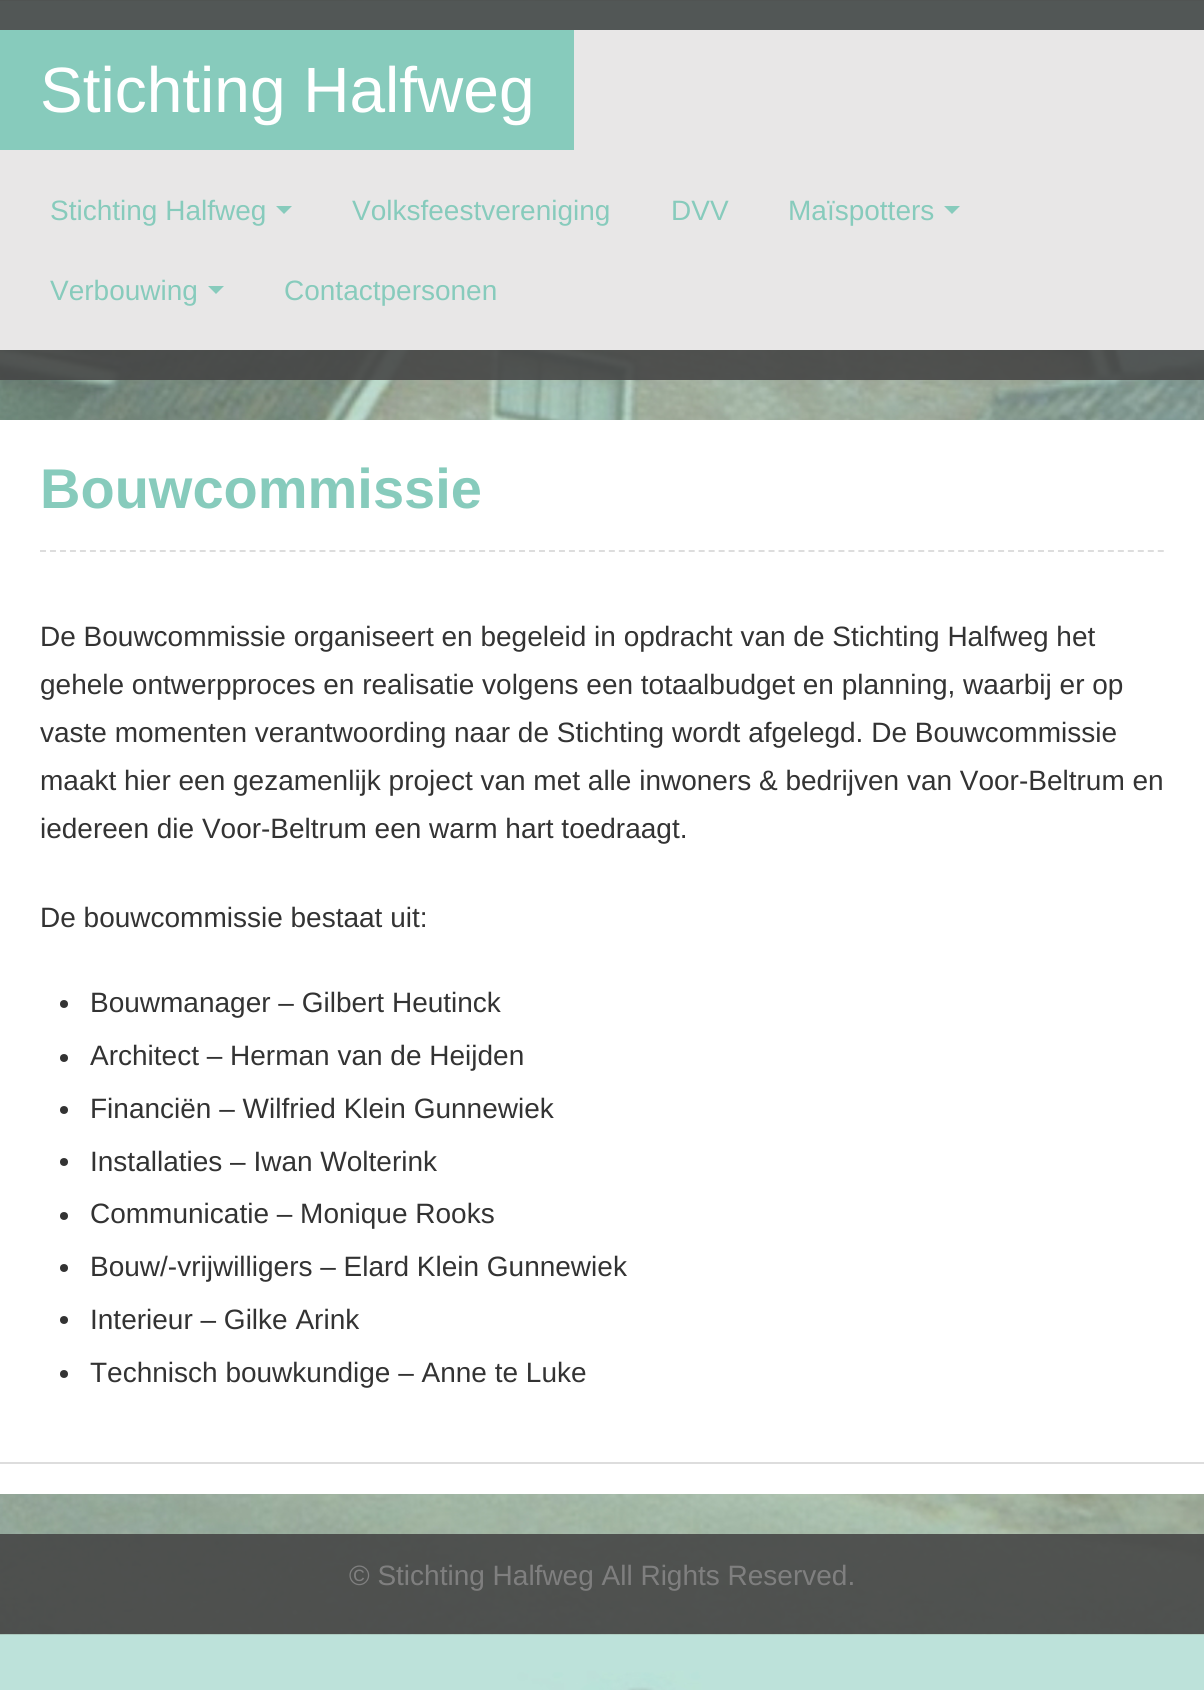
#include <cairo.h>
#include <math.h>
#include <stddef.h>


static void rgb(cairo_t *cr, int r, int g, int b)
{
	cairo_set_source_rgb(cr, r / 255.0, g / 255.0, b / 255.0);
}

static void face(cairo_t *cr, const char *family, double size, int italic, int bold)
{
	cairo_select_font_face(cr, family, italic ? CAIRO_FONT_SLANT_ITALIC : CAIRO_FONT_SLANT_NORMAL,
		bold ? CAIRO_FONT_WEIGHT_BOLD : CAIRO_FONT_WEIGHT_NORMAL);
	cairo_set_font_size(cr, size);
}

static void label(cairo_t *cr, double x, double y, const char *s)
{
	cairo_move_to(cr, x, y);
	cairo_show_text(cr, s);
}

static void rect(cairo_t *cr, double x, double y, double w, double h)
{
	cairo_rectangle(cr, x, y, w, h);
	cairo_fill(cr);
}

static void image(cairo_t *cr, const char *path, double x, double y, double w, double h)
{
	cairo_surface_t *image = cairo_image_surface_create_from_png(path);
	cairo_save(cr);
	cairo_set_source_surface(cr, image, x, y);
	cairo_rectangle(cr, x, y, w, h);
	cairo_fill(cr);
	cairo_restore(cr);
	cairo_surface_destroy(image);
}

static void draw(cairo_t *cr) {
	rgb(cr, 255, 255, 255);
	cairo_paint(cr);
	image(cr, "image0.png", 0, 0, 1204, 1690);
	cairo_set_source_rgba(cr, 0.267, 0.267, 0.267, 0.88);
	rect(cr, 0, 0, 1204, 380);
	rgb(cr, 232, 231, 231);
	rect(cr, 0, 30, 1204, 320);
	rgb(cr, 135, 203, 188);
	rect(cr, 0, 30, 574, 120);
	face(cr, "Liberation Sans", 64, 0, 0);
	rgb(cr, 255, 255, 255);
	label(cr, 40, 112, "Stichting Halfweg");
	face(cr, "Liberation Sans", 28, 0, 0);
	rgb(cr, 135, 203, 188);
	label(cr, 50, 220, "Stichting Halfweg");
	cairo_new_path(cr);
	cairo_move_to(cr, 276, 206);
	cairo_line_to(cr, 292, 206);
	cairo_line_to(cr, 284, 214);
	cairo_close_path(cr);
	cairo_fill(cr);
	label(cr, 352, 220, "Volksfeestvereniging");
	label(cr, 671, 220, "DVV");
	label(cr, 788, 220, "Maïspotters");
	cairo_new_path(cr);
	cairo_move_to(cr, 944, 206);
	cairo_line_to(cr, 960, 206);
	cairo_line_to(cr, 952, 214);
	cairo_close_path(cr);
	cairo_fill(cr);
	label(cr, 50, 300, "Verbouwing");
	cairo_new_path(cr);
	cairo_move_to(cr, 208, 286);
	cairo_line_to(cr, 224, 286);
	cairo_line_to(cr, 216, 294);
	cairo_close_path(cr);
	cairo_fill(cr);
	label(cr, 284, 300, "Contactpersonen");
	rgb(cr, 255, 255, 255);
	rect(cr, 0, 420, 1204, 1074);
	rgb(cr, 221, 221, 221);
	rect(cr, 0, 1462, 1204, 2);
	cairo_new_path(cr);
	cairo_move_to(cr, 40, 551);
	cairo_line_to(cr, 1164, 551);
	cairo_set_dash(cr, (double[]){6, 3.98}, 2, 0);
	cairo_stroke(cr);
	face(cr, "Liberation Sans", 56, 0, 1);
	rgb(cr, 135, 203, 188);
	label(cr, 40, 508, "Bouwcommissie");
	face(cr, "Liberation Sans", 28, 0, 0);
	rgb(cr, 51, 51, 51);
	label(cr, 40, 646, "De Bouwcommissie organiseert en begeleid in opdracht van de Stichting Halfweg het");
	label(cr, 40, 694, "gehele ontwerpproces en realisatie volgens een totaalbudget en planning, waarbij er op");
	label(cr, 40, 742, "vaste momenten verantwoording naar de Stichting wordt afgelegd. De Bouwcommissie");
	label(cr, 40, 790, "maakt hier een gezamenlijk project van met alle inwoners & bedrijven van Voor-Beltrum en");
	label(cr, 40, 838, "iedereen die Voor-Beltrum een warm hart toedraagt.");
	label(cr, 40, 927, "De bouwcommissie bestaat uit:");
	cairo_new_path(cr);
	cairo_arc(cr, 64, 1004, 4, 0, 2 * M_PI);
	cairo_fill(cr);
	label(cr, 90, 1012, "Bouwmanager – Gilbert Heutinck");
	cairo_new_path(cr);
	cairo_arc(cr, 64, 1058, 4, 0, 2 * M_PI);
	cairo_fill(cr);
	label(cr, 90, 1065, "Architect – Herman van de Heijden");
	cairo_new_path(cr);
	cairo_arc(cr, 64, 1110, 4, 0, 2 * M_PI);
	cairo_fill(cr);
	label(cr, 90, 1118, "Financiën – Wilfried Klein Gunnewiek");
	cairo_new_path(cr);
	cairo_arc(cr, 64, 1162, 4, 0, 2 * M_PI);
	cairo_fill(cr);
	label(cr, 90, 1171, "Installaties – Iwan Wolterink");
	cairo_new_path(cr);
	cairo_arc(cr, 64, 1216, 4, 0, 2 * M_PI);
	cairo_fill(cr);
	label(cr, 90, 1223, "Communicatie – Monique Rooks");
	cairo_new_path(cr);
	cairo_arc(cr, 64, 1268, 4, 0, 2 * M_PI);
	cairo_fill(cr);
	label(cr, 90, 1276, "Bouw/-vrijwilligers – Elard Klein Gunnewiek");
	cairo_new_path(cr);
	cairo_arc(cr, 64, 1320, 4, 0, 2 * M_PI);
	cairo_fill(cr);
	label(cr, 90, 1329, "Interieur – Gilke Arink");
	cairo_new_path(cr);
	cairo_arc(cr, 64, 1374, 4, 0, 2 * M_PI);
	cairo_fill(cr);
	label(cr, 90, 1382, "Technisch bouwkundige – Anne te Luke");
	cairo_set_source_rgba(cr, 0.267, 0.267, 0.267, 0.88);
	rect(cr, 0, 1534, 1204, 100);
	rgb(cr, 127, 127, 127);
	label(cr, 349, 1585, "© Stichting Halfweg All Rights Reserved.");
}

int main(void) {
	cairo_surface_t *surface = cairo_image_surface_create(CAIRO_FORMAT_RGB24, 1204, 1690);
	cairo_t *cr = cairo_create(surface);
	cairo_font_options_t *options = cairo_font_options_create();
	cairo_font_options_set_hint_metrics(options, CAIRO_HINT_METRICS_OFF);
	cairo_font_options_set_hint_style(options, CAIRO_HINT_STYLE_NONE);
	cairo_set_font_options(cr, options);
	cairo_set_miter_limit(cr, 4);
	draw(cr);
	cairo_surface_write_to_png(surface, "render.png");
	cairo_font_options_destroy(options);
	cairo_destroy(cr);
	cairo_surface_destroy(surface);
	return 0;
}
